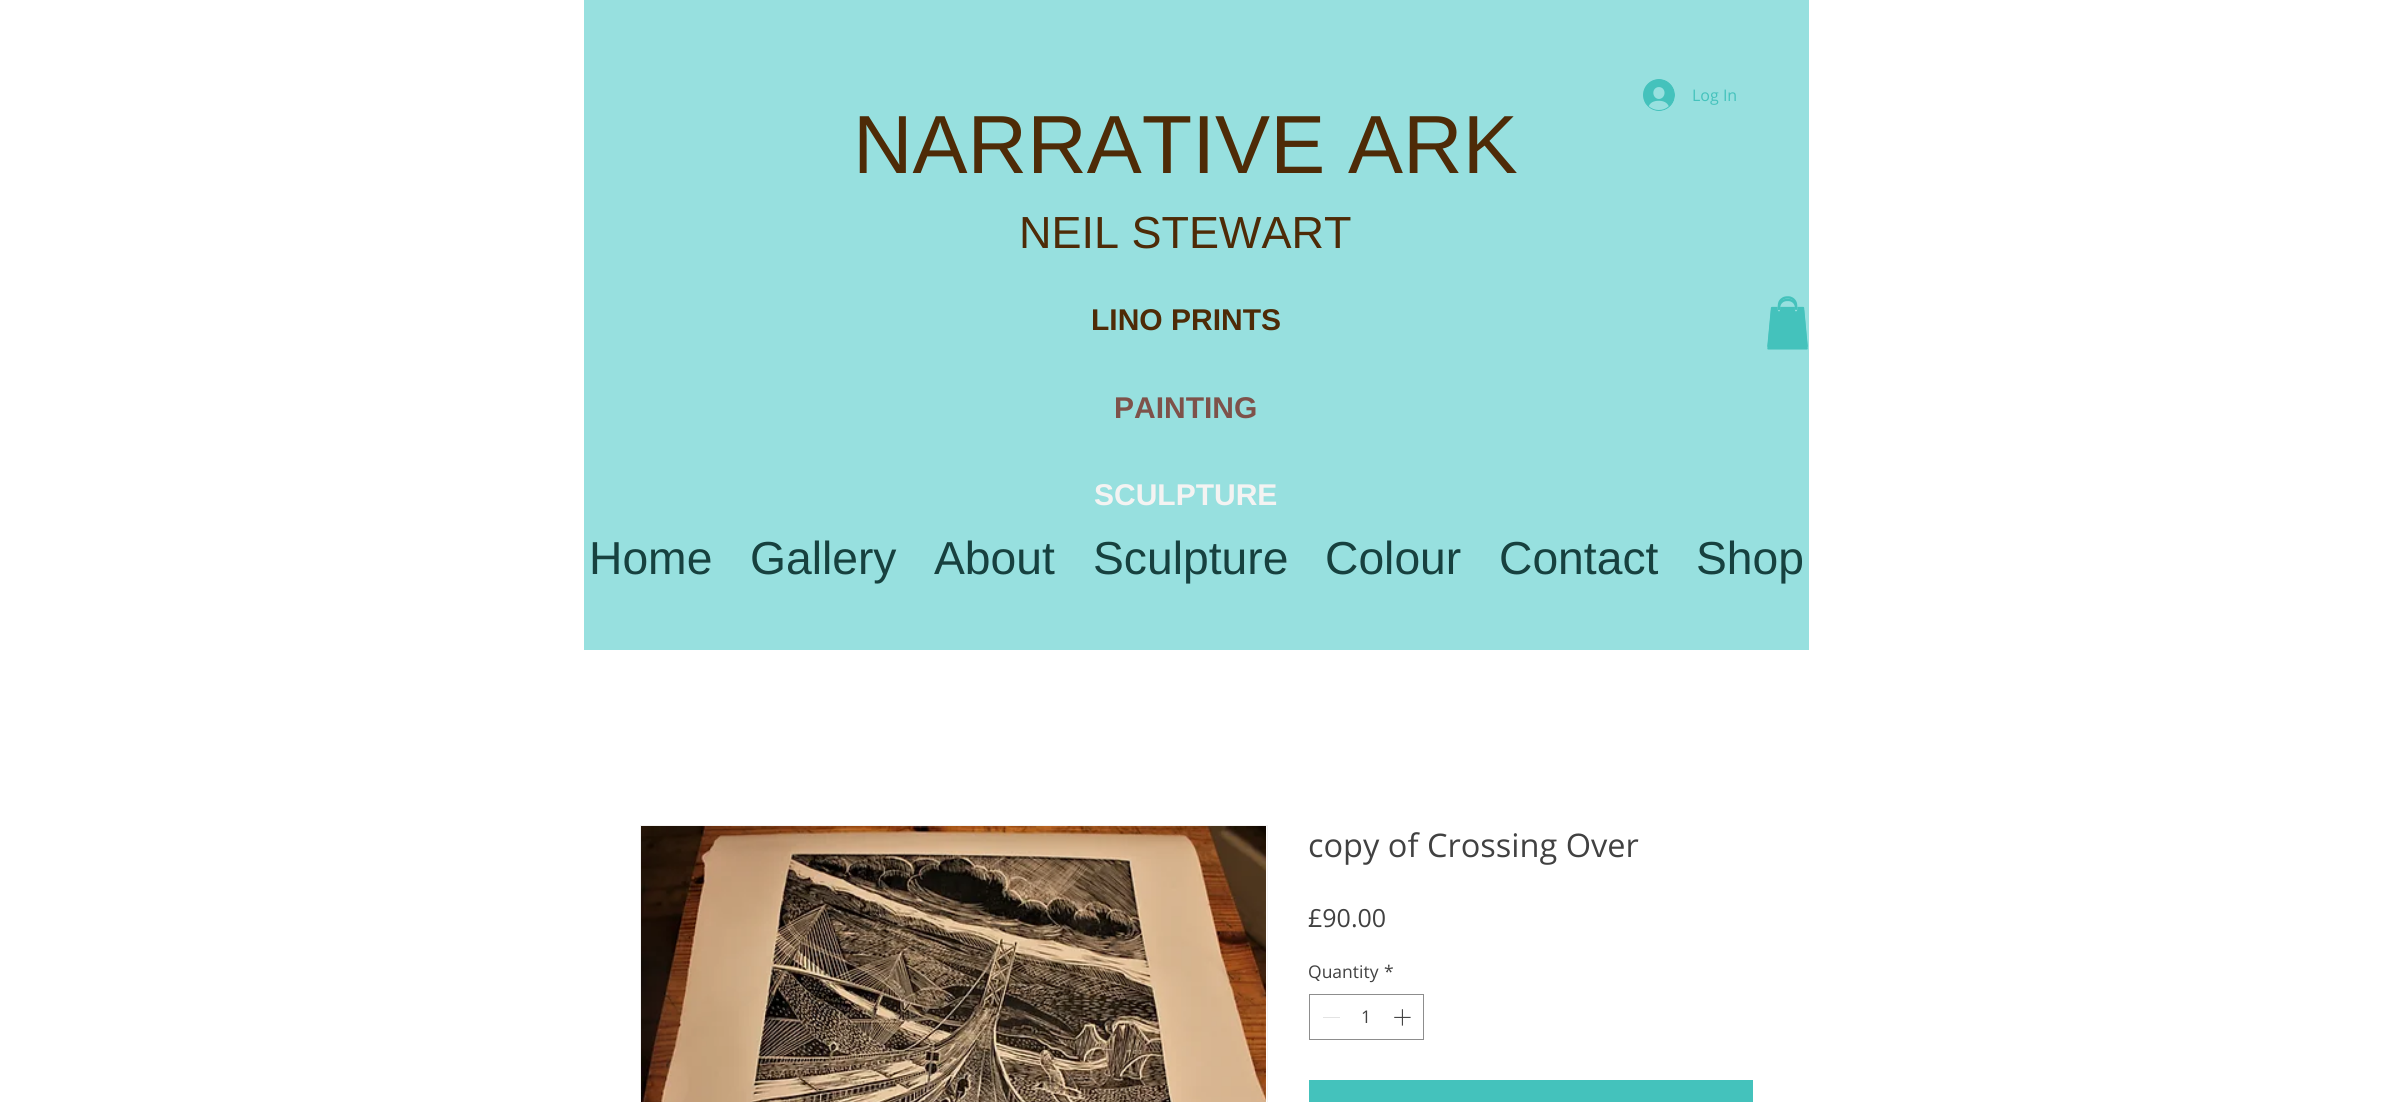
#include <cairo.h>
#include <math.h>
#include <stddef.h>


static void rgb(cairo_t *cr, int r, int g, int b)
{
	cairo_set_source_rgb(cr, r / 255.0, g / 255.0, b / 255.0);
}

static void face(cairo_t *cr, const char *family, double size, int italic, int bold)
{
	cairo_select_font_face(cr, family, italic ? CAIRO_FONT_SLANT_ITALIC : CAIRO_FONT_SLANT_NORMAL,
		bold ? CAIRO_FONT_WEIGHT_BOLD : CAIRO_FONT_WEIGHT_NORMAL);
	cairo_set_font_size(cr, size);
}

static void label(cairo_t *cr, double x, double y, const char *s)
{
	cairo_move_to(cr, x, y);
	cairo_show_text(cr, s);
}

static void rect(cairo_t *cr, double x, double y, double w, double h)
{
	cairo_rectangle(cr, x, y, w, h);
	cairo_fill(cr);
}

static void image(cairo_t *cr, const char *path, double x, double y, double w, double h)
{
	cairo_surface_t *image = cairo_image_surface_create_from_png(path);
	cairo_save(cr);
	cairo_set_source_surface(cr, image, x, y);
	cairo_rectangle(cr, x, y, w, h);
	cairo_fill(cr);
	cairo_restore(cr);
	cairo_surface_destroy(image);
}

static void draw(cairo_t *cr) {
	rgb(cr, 255, 255, 255);
	cairo_paint(cr);
	rgb(cr, 151, 224, 223);
	rect(cr, 584, 0, 1225, 650);
	image(cr, "image0.png", 1643, 79, 32, 32);
	face(cr, "Open Sans", 16, 0, 0);
	rgb(cr, 68, 194, 188);
	label(cr, 1692, 101, "Log In");
	face(cr, "Liberation Sans", 82.5, 0, 0);
	rgb(cr, 78, 43, 7);
	label(cr, 853, 173, "NARRATIVE ARK");
	face(cr, "Liberation Sans", 45, 0, 0);
	label(cr, 1019, 248, "NEIL STEWART");
	face(cr, "Liberation Sans", 30, 0, 1);
	label(cr, 1091, 330, "LINO PRINTS");
	rgb(cr, 126, 82, 74);
	label(cr, 1114, 418, "PAINTING");
	rgb(cr, 244, 243, 242);
	label(cr, 1094, 505, "SCULPTURE");
	image(cr, "image1.png", 1767, 296, 41, 51);
	image(cr, "image2.png", 1767, 298, 41, 52);
	face(cr, "Liberation Sans", 46.25, 0, 0);
	rgb(cr, 23, 65, 63);
	label(cr, 589, 574, "Home");
	label(cr, 750, 574, "Gallery");
	label(cr, 934, 574, "About");
	label(cr, 1093, 574, "Sculpture");
	label(cr, 1325, 574, "Colour");
	label(cr, 1499, 574, "Contact");
	label(cr, 1696, 574, "Shop");
	cairo_rectangle(cr, 640.5, 825.5, 627, 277);
	rgb(cr, 244, 243, 242);
	cairo_set_line_width(cr, 1);
	cairo_stroke(cr);
	image(cr, "image3.png", 641, 826, 625, 276);
	face(cr, "Open Sans", 32.5, 0, 0);
	rgb(cr, 65, 65, 65);
	label(cr, 1308, 857, "copy of Crossing Over");
	face(cr, "Open Sans", 25, 0, 0);
	label(cr, 1308, 927, "£90.00");
	face(cr, "Open Sans", 17.5, 0, 0);
	label(cr, 1308, 978, "Quantity");
	label(cr, 1384, 978, "*");
	cairo_rectangle(cr, 1309.5, 994.5, 114, 45);
	rgb(cr, 141, 141, 141);
	cairo_stroke(cr);
	rgb(cr, 227, 227, 227);
	rect(cr, 1323, 1017, 17, 1);
	rgb(cr, 65, 65, 65);
	label(cr, 1361, 1023, "1");
	image(cr, "image4.png", 1394, 1009, 17, 17);
	rgb(cr, 68, 194, 188);
	rect(cr, 1309, 1080, 444, 22);
}

int main(void) {
	cairo_surface_t *surface = cairo_image_surface_create(CAIRO_FORMAT_RGB24, 2391, 1102);
	cairo_t *cr = cairo_create(surface);
	cairo_font_options_t *options = cairo_font_options_create();
	cairo_font_options_set_hint_metrics(options, CAIRO_HINT_METRICS_OFF);
	cairo_font_options_set_hint_style(options, CAIRO_HINT_STYLE_NONE);
	cairo_set_font_options(cr, options);
	cairo_set_miter_limit(cr, 4);
	draw(cr);
	cairo_surface_write_to_png(surface, "render.png");
	cairo_font_options_destroy(options);
	cairo_destroy(cr);
	cairo_surface_destroy(surface);
	return 0;
}
